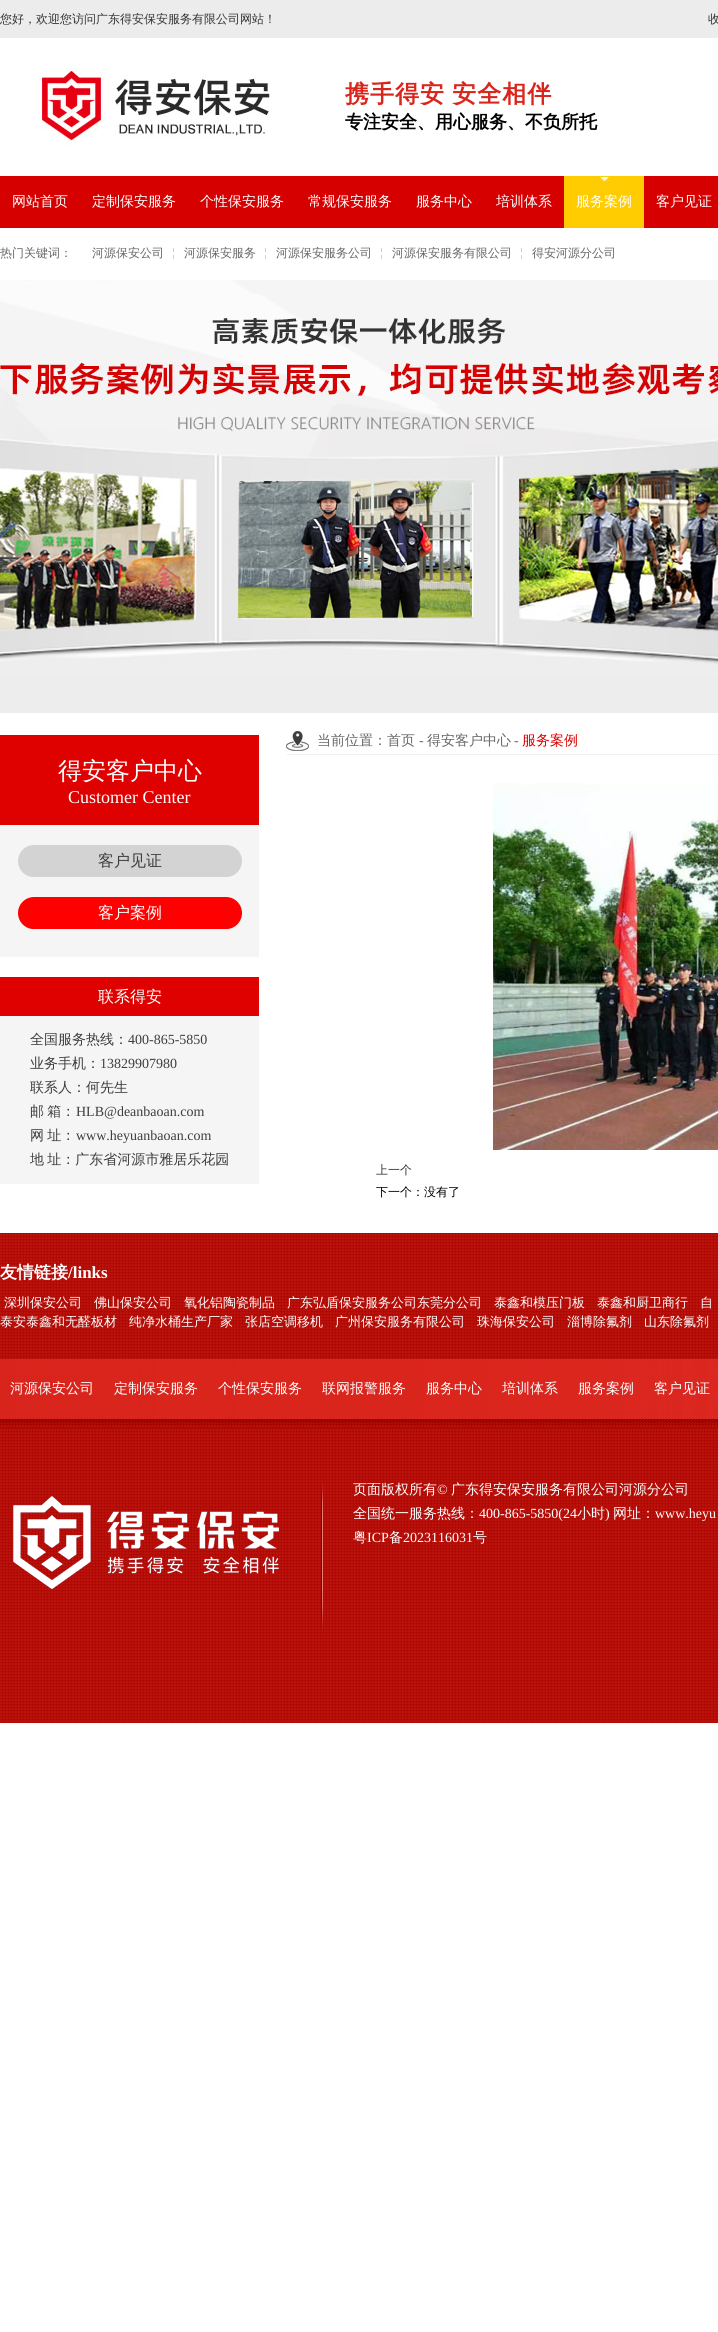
#include <cairo.h>
#include <math.h>
#include <stddef.h>


static void rgb(cairo_t *cr, int r, int g, int b)
{
	cairo_set_source_rgb(cr, r / 255.0, g / 255.0, b / 255.0);
}

static void face(cairo_t *cr, const char *family, double size, int italic, int bold)
{
	cairo_select_font_face(cr, family, italic ? CAIRO_FONT_SLANT_ITALIC : CAIRO_FONT_SLANT_NORMAL,
		bold ? CAIRO_FONT_WEIGHT_BOLD : CAIRO_FONT_WEIGHT_NORMAL);
	cairo_set_font_size(cr, size);
}

static void label(cairo_t *cr, double x, double y, const char *s)
{
	cairo_move_to(cr, x, y);
	cairo_show_text(cr, s);
}

static void tracked(cairo_t *cr, double x, double y, const char *s, double letter, double word)
{
	cairo_move_to(cr, x, y);
	while (*s) {
		char ch[5] = {0};
		int n = 0;
		do ch[n++] = *s++; while ((*s & 0xC0) == 0x80);
		cairo_show_text(cr, ch);
		cairo_rel_move_to(cr, letter + word * (*ch == ' '), 0);
	}
}

static void rect(cairo_t *cr, double x, double y, double w, double h)
{
	cairo_rectangle(cr, x, y, w, h);
	cairo_fill(cr);
}

static void image(cairo_t *cr, const char *path, double x, double y, double w, double h)
{
	cairo_surface_t *image = cairo_image_surface_create_from_png(path);
	cairo_save(cr);
	cairo_set_source_surface(cr, image, x, y);
	cairo_rectangle(cr, x, y, w, h);
	cairo_fill(cr);
	cairo_restore(cr);
	cairo_surface_destroy(image);
}

static void draw(cairo_t *cr) {
	rgb(cr, 255, 255, 255);
	cairo_paint(cr);
	rgb(cr, 236, 236, 236);
	rect(cr, 0, 0, 718, 38);
	face(cr, "WenQuanYi Zen Hei Medium", 12, 0, 0);
	rgb(cr, 52, 52, 52);
	label(cr, 0, 23, "您好，欢迎您访问广东得安保安服务有限公司网站！");
	label(cr, 708, 23, "收");
	image(cr, "image0.png", 42, 67, 229, 80);
	face(cr, "WenQuanYi Zen Hei", 24, 0, 1);
	rgb(cr, 218, 37, 28);
	tracked(cr, 345, 102, "携手得安 安全相伴", 1, -1);
	face(cr, "WenQuanYi Zen Hei", 18, 0, 1);
	rgb(cr, 0, 0, 0);
	label(cr, 345, 128, "专注安全、用心服务、不负所托");
	rgb(cr, 214, 0, 0);
	rect(cr, 0, 176, 718, 52);
	face(cr, "WenQuanYi Zen Hei Medium", 14, 0, 0);
	rgb(cr, 255, 255, 255);
	label(cr, 12, 206, "网站首页");
	label(cr, 92, 206, "定制保安服务");
	label(cr, 200, 206, "个性保安服务");
	label(cr, 308, 206, "常规保安服务");
	label(cr, 416, 206, "服务中心");
	label(cr, 496, 206, "培训体系");
	rgb(cr, 255, 204, 2);
	rect(cr, 564, 176, 80, 52);
	image(cr, "image1.png", 593, 176, 17, 8);
	rgb(cr, 255, 255, 255);
	label(cr, 576, 206, "服务案例");
	label(cr, 656, 206, "客户见证");
	face(cr, "WenQuanYi Zen Hei Medium", 12, 0, 0);
	rgb(cr, 102, 102, 102);
	label(cr, 0, 257, "热门关键词：");
	image(cr, "image2.png", 173, 248, 1, 11);
	label(cr, 92, 257, "河源保安公司");
	image(cr, "image2.png", 265, 248, 1, 11);
	label(cr, 184, 257, "河源保安服务");
	image(cr, "image2.png", 381, 248, 1, 11);
	label(cr, 276, 257, "河源保安服务公司");
	image(cr, "image2.png", 521, 248, 1, 11);
	label(cr, 392, 257, "河源保安服务有限公司");
	label(cr, 532, 257, "得安河源分公司");
	image(cr, "image3.png", 0, 280, 718, 433);
	rgb(cr, 245, 245, 245);
	rect(cr, 0, 825, 259, 132);
	rgb(cr, 223, 0, 0);
	rect(cr, 0, 735, 259, 90);
	face(cr, "WenQuanYi Zen Hei Medium", 24, 0, 0);
	rgb(cr, 255, 255, 255);
	label(cr, 58, 779, "得安客户中心");
	face(cr, "Liberation Serif", 18, 0, 0);
	label(cr, 68, 803, "Customer Center");
	image(cr, "image4.png", 18, 845, 224, 32);
	face(cr, "WenQuanYi Zen Hei Medium", 16, 0, 0);
	rgb(cr, 61, 61, 61);
	label(cr, 98, 866, "客户见证");
	image(cr, "image5.png", 18, 897, 224, 32);
	rgb(cr, 255, 255, 255);
	label(cr, 98, 918, "客户案例");
	rgb(cr, 223, 0, 0);
	rect(cr, 0, 977, 259, 39);
	rgb(cr, 255, 255, 255);
	label(cr, 98, 1002, "联系得安");
	rgb(cr, 245, 245, 245);
	rect(cr, 0, 1016, 259, 168);
	face(cr, "WenQuanYi Zen Hei Medium", 14, 0, 0);
	rgb(cr, 61, 61, 61);
	label(cr, 30, 1044, "全国服务热线：");
	face(cr, "Liberation Serif", 14, 0, 0);
	label(cr, 128, 1044, "400-865-5850");
	face(cr, "WenQuanYi Zen Hei Medium", 14, 0, 0);
	label(cr, 30, 1068, "业务手机：");
	face(cr, "Liberation Serif", 14, 0, 0);
	label(cr, 100, 1068, "13829907980");
	face(cr, "WenQuanYi Zen Hei Medium", 14, 0, 0);
	label(cr, 30, 1092, "联系人：何先生");
	tracked(cr, 30, 1116, "邮 箱：", 0, -1);
	face(cr, "Liberation Serif", 14, 0, 0);
	label(cr, 76, 1116, "HLB@deanbaoan.com");
	face(cr, "WenQuanYi Zen Hei Medium", 14, 0, 0);
	tracked(cr, 30, 1140, "网 址：", 0, -1);
	face(cr, "Liberation Serif", 14, 0, 0);
	label(cr, 76, 1140, "www.heyuanbaoan.com");
	face(cr, "WenQuanYi Zen Hei Medium", 14, 0, 0);
	tracked(cr, 30, 1164, "地 址：广东省河源市雅居乐花园", 0, -1);
	image(cr, "image6.png", 286, 731, 432, 24);
	rgb(cr, 102, 102, 102);
	label(cr, 317, 745, "当前位置：首页");
	face(cr, "Liberation Serif", 14, 0, 0);
	label(cr, 419, 745, "-");
	face(cr, "WenQuanYi Zen Hei Medium", 14, 0, 0);
	label(cr, 427, 745, "得安客户中心");
	face(cr, "Liberation Serif", 14, 0, 0);
	label(cr, 514, 745, "-");
	face(cr, "WenQuanYi Zen Hei Medium", 14, 0, 0);
	rgb(cr, 223, 0, 0);
	label(cr, 522, 745, "服务案例");
	image(cr, "image7.png", 493, 783, 225, 367);
	face(cr, "WenQuanYi Zen Hei Medium", 12, 0, 0);
	rgb(cr, 52, 52, 52);
	label(cr, 376, 1174, "上一个");
	rgb(cr, 0, 0, 0);
	label(cr, 376, 1196, "下一个：没有了");
	image(cr, "image8.png", 0, 1233, 718, 490);
	face(cr, "WenQuanYi Zen Hei", 17, 0, 1);
	rgb(cr, 255, 255, 255);
	label(cr, 0, 1278, "友情链接");
	face(cr, "Liberation Serif", 17, 0, 1);
	label(cr, 68, 1278, "/links");
	face(cr, "WenQuanYi Zen Hei Medium", 13, 0, 0);
	label(cr, 4, 1307, "深圳保安公司");
	label(cr, 94, 1307, "佛山保安公司");
	label(cr, 184, 1307, "氧化铝陶瓷制品");
	label(cr, 287, 1307, "广东弘盾保安服务公司东莞分公司");
	label(cr, 494, 1307, "泰鑫和模压门板");
	label(cr, 597, 1307, "泰鑫和厨卫商行");
	label(cr, 700, 1307, "自");
	label(cr, 0, 1326, "泰安泰鑫和无醛板材");
	label(cr, 129, 1326, "纯净水桶生产厂家");
	label(cr, 245, 1326, "张店空调移机");
	label(cr, 335, 1326, "广州保安服务有限公司");
	label(cr, 477, 1326, "珠海保安公司");
	label(cr, 567, 1326, "淄博除氟剂");
	label(cr, 644, 1326, "山东除氟剂");
	image(cr, "image9.png", 0, 1359, 718, 69);
	face(cr, "WenQuanYi Zen Hei Medium", 14, 0, 0);
	label(cr, 10, 1393, "河源保安公司");
	label(cr, 114, 1393, "定制保安服务");
	label(cr, 218, 1393, "个性保安服务");
	label(cr, 322, 1393, "联网报警服务");
	label(cr, 426, 1393, "服务中心");
	label(cr, 502, 1393, "培训体系");
	label(cr, 578, 1393, "服务案例");
	label(cr, 654, 1393, "客户见证");
	image(cr, "image10.png", 13, 1482, 310, 151);
	label(cr, 353, 1494, "页面版权所有");
	face(cr, "Liberation Serif", 14, 0, 0);
	label(cr, 437, 1494, "©");
	face(cr, "WenQuanYi Zen Hei Medium", 14, 0, 0);
	label(cr, 451, 1494, "广东得安保安服务有限公司河源分公司");
	label(cr, 353, 1518, "全国统一服务热线：");
	face(cr, "Liberation Serif", 14, 0, 0);
	label(cr, 479, 1518, "400-865-5850(24");
	face(cr, "WenQuanYi Zen Hei Medium", 14, 0, 0);
	label(cr, 577, 1518, "小时");
	face(cr, "Liberation Serif", 14, 0, 0);
	label(cr, 605, 1518, ")");
	face(cr, "WenQuanYi Zen Hei Medium", 14, 0, 0);
	label(cr, 613, 1518, "网址：");
	face(cr, "Liberation Serif", 14, 0, 0);
	label(cr, 655, 1518, "www.heyu");
	face(cr, "WenQuanYi Zen Hei Medium", 14, 0, 0);
	label(cr, 353, 1542, "粤");
	face(cr, "Liberation Serif", 14, 0, 0);
	label(cr, 367, 1542, "ICP");
	face(cr, "WenQuanYi Zen Hei Medium", 14, 0, 0);
	label(cr, 389, 1542, "备");
	face(cr, "Liberation Serif", 14, 0, 0);
	label(cr, 403, 1542, "2023116031");
	face(cr, "WenQuanYi Zen Hei Medium", 14, 0, 0);
	label(cr, 473, 1542, "号");
}

int main(void) {
	cairo_surface_t *surface = cairo_image_surface_create(CAIRO_FORMAT_RGB24, 718, 2332);
	cairo_t *cr = cairo_create(surface);
	cairo_font_options_t *options = cairo_font_options_create();
	cairo_font_options_set_hint_metrics(options, CAIRO_HINT_METRICS_OFF);
	cairo_font_options_set_hint_style(options, CAIRO_HINT_STYLE_NONE);
	cairo_set_font_options(cr, options);
	cairo_set_miter_limit(cr, 4);
	draw(cr);
	cairo_surface_write_to_png(surface, "render.png");
	cairo_font_options_destroy(options);
	cairo_destroy(cr);
	cairo_surface_destroy(surface);
	return 0;
}
